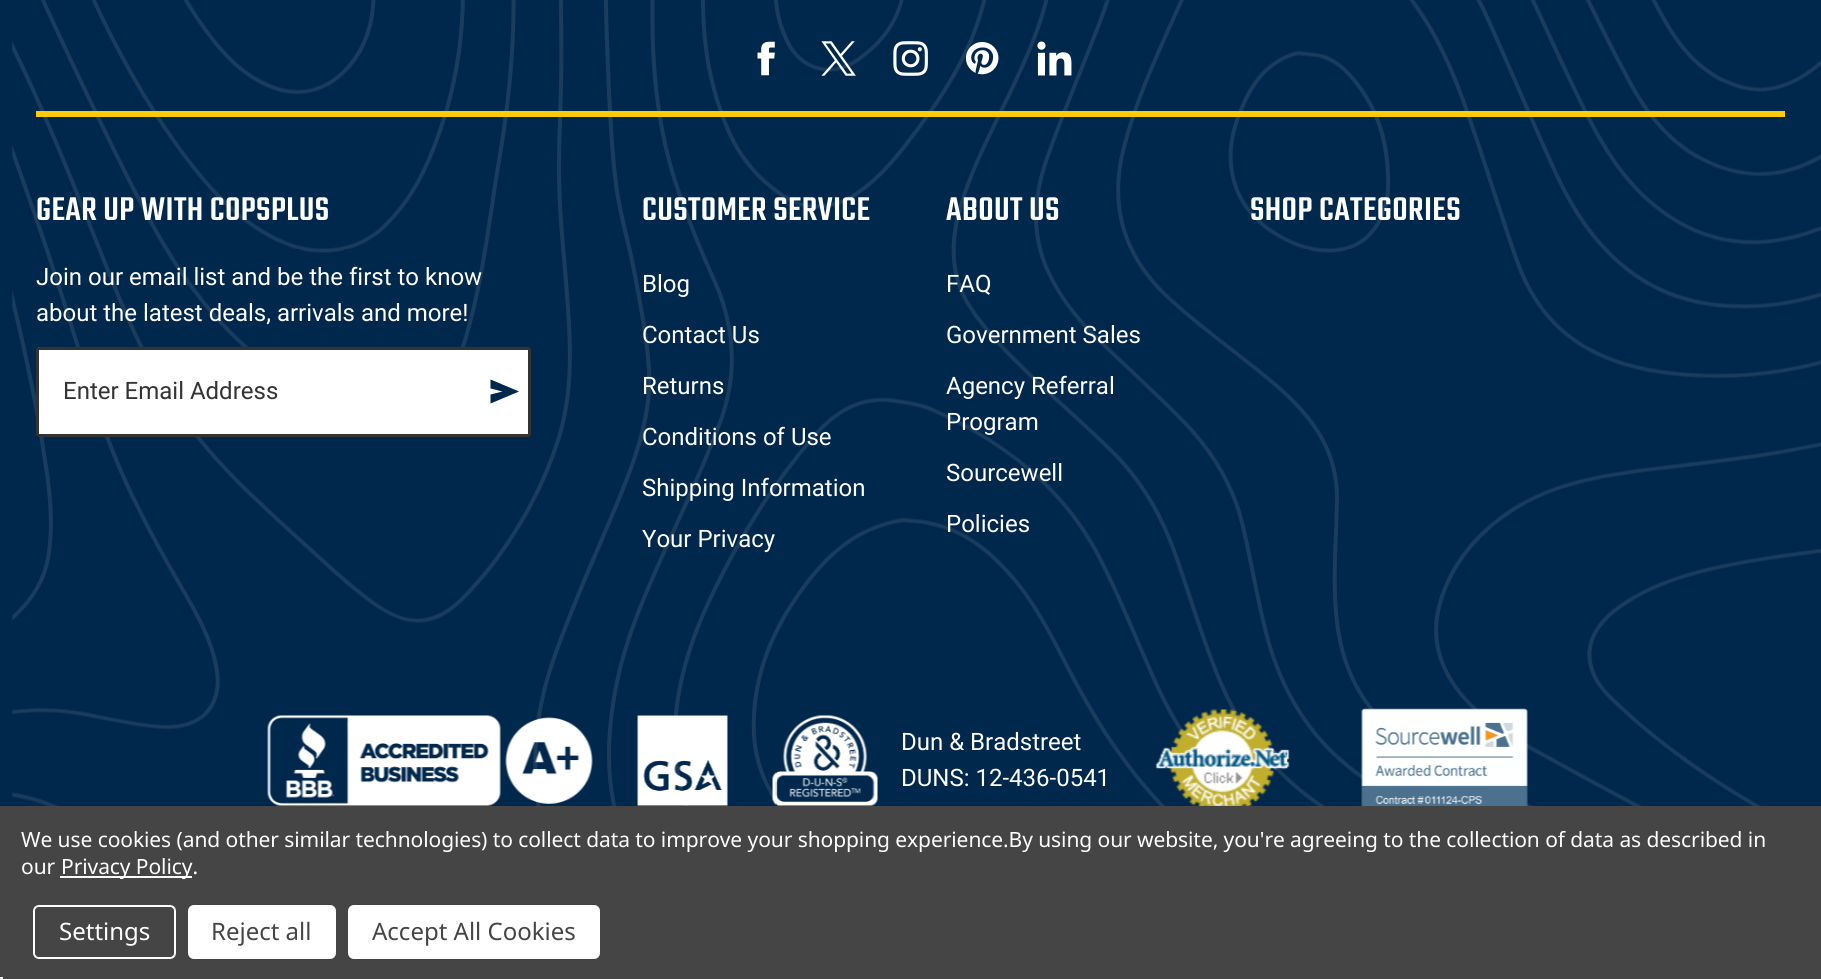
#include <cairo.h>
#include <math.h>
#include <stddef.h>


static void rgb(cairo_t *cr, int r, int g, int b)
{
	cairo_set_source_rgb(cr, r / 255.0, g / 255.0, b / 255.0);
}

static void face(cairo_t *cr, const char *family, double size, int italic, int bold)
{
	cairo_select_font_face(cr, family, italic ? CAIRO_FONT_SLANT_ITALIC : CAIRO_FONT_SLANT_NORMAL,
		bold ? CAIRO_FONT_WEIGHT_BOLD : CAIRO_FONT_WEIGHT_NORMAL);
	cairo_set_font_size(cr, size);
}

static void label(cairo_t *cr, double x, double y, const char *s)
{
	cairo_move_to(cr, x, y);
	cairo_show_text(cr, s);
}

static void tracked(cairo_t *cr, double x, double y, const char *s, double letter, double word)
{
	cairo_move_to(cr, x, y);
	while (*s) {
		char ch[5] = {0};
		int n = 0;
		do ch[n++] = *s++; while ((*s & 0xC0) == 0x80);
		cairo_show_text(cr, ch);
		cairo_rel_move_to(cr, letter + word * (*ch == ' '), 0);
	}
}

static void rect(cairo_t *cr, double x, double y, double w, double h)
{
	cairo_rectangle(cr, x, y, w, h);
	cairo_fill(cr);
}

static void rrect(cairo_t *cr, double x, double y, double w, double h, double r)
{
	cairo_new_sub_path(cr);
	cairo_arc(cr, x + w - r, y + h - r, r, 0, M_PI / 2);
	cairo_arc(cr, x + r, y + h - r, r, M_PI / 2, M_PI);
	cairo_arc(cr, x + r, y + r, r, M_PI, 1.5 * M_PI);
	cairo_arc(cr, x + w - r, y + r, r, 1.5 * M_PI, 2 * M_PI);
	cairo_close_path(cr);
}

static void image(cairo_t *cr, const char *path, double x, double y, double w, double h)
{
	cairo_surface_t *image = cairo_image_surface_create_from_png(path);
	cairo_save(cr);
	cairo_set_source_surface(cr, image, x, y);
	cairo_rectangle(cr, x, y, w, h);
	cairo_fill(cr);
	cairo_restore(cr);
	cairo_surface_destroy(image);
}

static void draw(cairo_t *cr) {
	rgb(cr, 0, 39, 76);
	cairo_paint(cr);
	image(cr, "image0.png", 12, 0, 1809, 806);
	rgb(cr, 255, 203, 5);
	rect(cr, 36, 111, 1749, 6);
	image(cr, "image1.png", 757, 41, 18, 35);
	image(cr, "image2.png", 821, 41, 35, 35);
	image(cr, "image3.png", 893, 41, 35, 35);
	image(cr, "image4.png", 965, 42, 34, 33);
	image(cr, "image5.png", 1037, 41, 35, 35);
	face(cr, "Teko Medium", 36, 0, 0);
	rgb(cr, 255, 255, 255);
	tracked(cr, 36, 220, "GEAR UP WITH COPSPLUS", 0.4, 0);
	face(cr, "Roboto", 24, 0, 0);
	label(cr, 36, 285, "Join our email list and be the first to know");
	label(cr, 36, 321, "about the latest deals, arrivals and more!");
	rrect(cr, 37.5, 348.5, 492, 87, 1.5);
	cairo_fill_preserve(cr);
	rgb(cr, 51, 51, 51);
	cairo_set_line_width(cr, 3);
	cairo_stroke(cr);
	label(cr, 63, 399, "Enter Email Address");
	rgb(cr, 0, 39, 76);
	cairo_new_path(cr);
	cairo_move_to(cr, 490.5, 403.5);
	cairo_line_to(cr, 490.5, 394.5);
	cairo_line_to(cr, 502.5, 391.5);
	cairo_line_to(cr, 490.5, 388.5);
	cairo_line_to(cr, 490.5, 379.5);
	cairo_line_to(cr, 519, 391.5);
	cairo_close_path(cr);
	cairo_fill(cr);
	face(cr, "Teko Medium", 36, 0, 0);
	rgb(cr, 255, 255, 255);
	tracked(cr, 642, 220, "CUSTOMER SERVICE", 0.4, 0);
	face(cr, "Roboto", 24, 0, 0);
	label(cr, 642, 292, "Blog");
	label(cr, 642, 343, "Contact Us");
	label(cr, 642, 394, "Returns");
	label(cr, 642, 445, "Conditions of Use");
	label(cr, 642, 496, "Shipping Information");
	label(cr, 642, 547, "Your Privacy");
	face(cr, "Teko Medium", 36, 0, 0);
	tracked(cr, 946, 220, "ABOUT US", 0.4, 0);
	face(cr, "Roboto", 24, 0, 0);
	label(cr, 946, 292, "FAQ");
	label(cr, 946, 343, "Government Sales");
	label(cr, 946, 394, "Agency Referral");
	label(cr, 946, 430, "Program");
	label(cr, 946, 481, "Sourcewell");
	label(cr, 946, 532, "Policies");
	face(cr, "Teko Medium", 36, 0, 0);
	tracked(cr, 1250, 220, "SHOP CATEGORIES", 0.4, 0);
	image(cr, "image6.png", 267, 715, 326, 91);
	image(cr, "image7.png", 637, 715, 91, 91);
	image(cr, "image8.png", 772, 715, 106, 91);
	face(cr, "Roboto", 24, 0, 0);
	label(cr, 901, 750, "Dun & Bradstreet");
	label(cr, 901, 786, "DUNS: 12-436-0541");
	image(cr, "image9.png", 1155, 709, 135, 97);
	image(cr, "image10.png", 1361, 708, 167, 98);
	rgb(cr, 69, 69, 69);
	rect(cr, 0, 806, 1821, 173);
	face(cr, "Noto Sans", 21, 0, 0);
	rgb(cr, 255, 255, 255);
	tracked(cr, 21, 847, "We use cookies (and other similar technologies) to collect data to improve your shopping experience.By using our website, you're agreeing to the collection of data as described in", -0.08, 0);
	tracked(cr, 21, 874, "our", -0.08, 0);
	rect(cr, 60, 876, 132, 2);
	tracked(cr, 61, 874, "Privacy Policy.", -0.08, 0);
	rrect(cr, 34, 906, 141, 52, 5);
	cairo_set_line_width(cr, 2);
	cairo_stroke(cr);
	face(cr, "Noto Sans", 24, 0, 0);
	label(cr, 59, 940, "Settings");
	rrect(cr, 188, 905, 148, 54, 6);
	cairo_fill(cr);
	rgb(cr, 69, 69, 69);
	label(cr, 211, 940, "Reject all");
	rgb(cr, 255, 255, 255);
	rrect(cr, 348, 905, 252, 54, 6);
	cairo_fill(cr);
	rgb(cr, 69, 69, 69);
	label(cr, 372, 940, "Accept All Cookies");
	rgb(cr, 245, 245, 245);
	rect(cr, 0, 977, 3, 2);
}

int main(void) {
	cairo_surface_t *surface = cairo_image_surface_create(CAIRO_FORMAT_RGB24, 1821, 979);
	cairo_t *cr = cairo_create(surface);
	cairo_font_options_t *options = cairo_font_options_create();
	cairo_font_options_set_hint_metrics(options, CAIRO_HINT_METRICS_OFF);
	cairo_font_options_set_hint_style(options, CAIRO_HINT_STYLE_NONE);
	cairo_set_font_options(cr, options);
	cairo_set_miter_limit(cr, 4);
	draw(cr);
	cairo_surface_write_to_png(surface, "render.png");
	cairo_font_options_destroy(options);
	cairo_destroy(cr);
	cairo_surface_destroy(surface);
	return 0;
}
